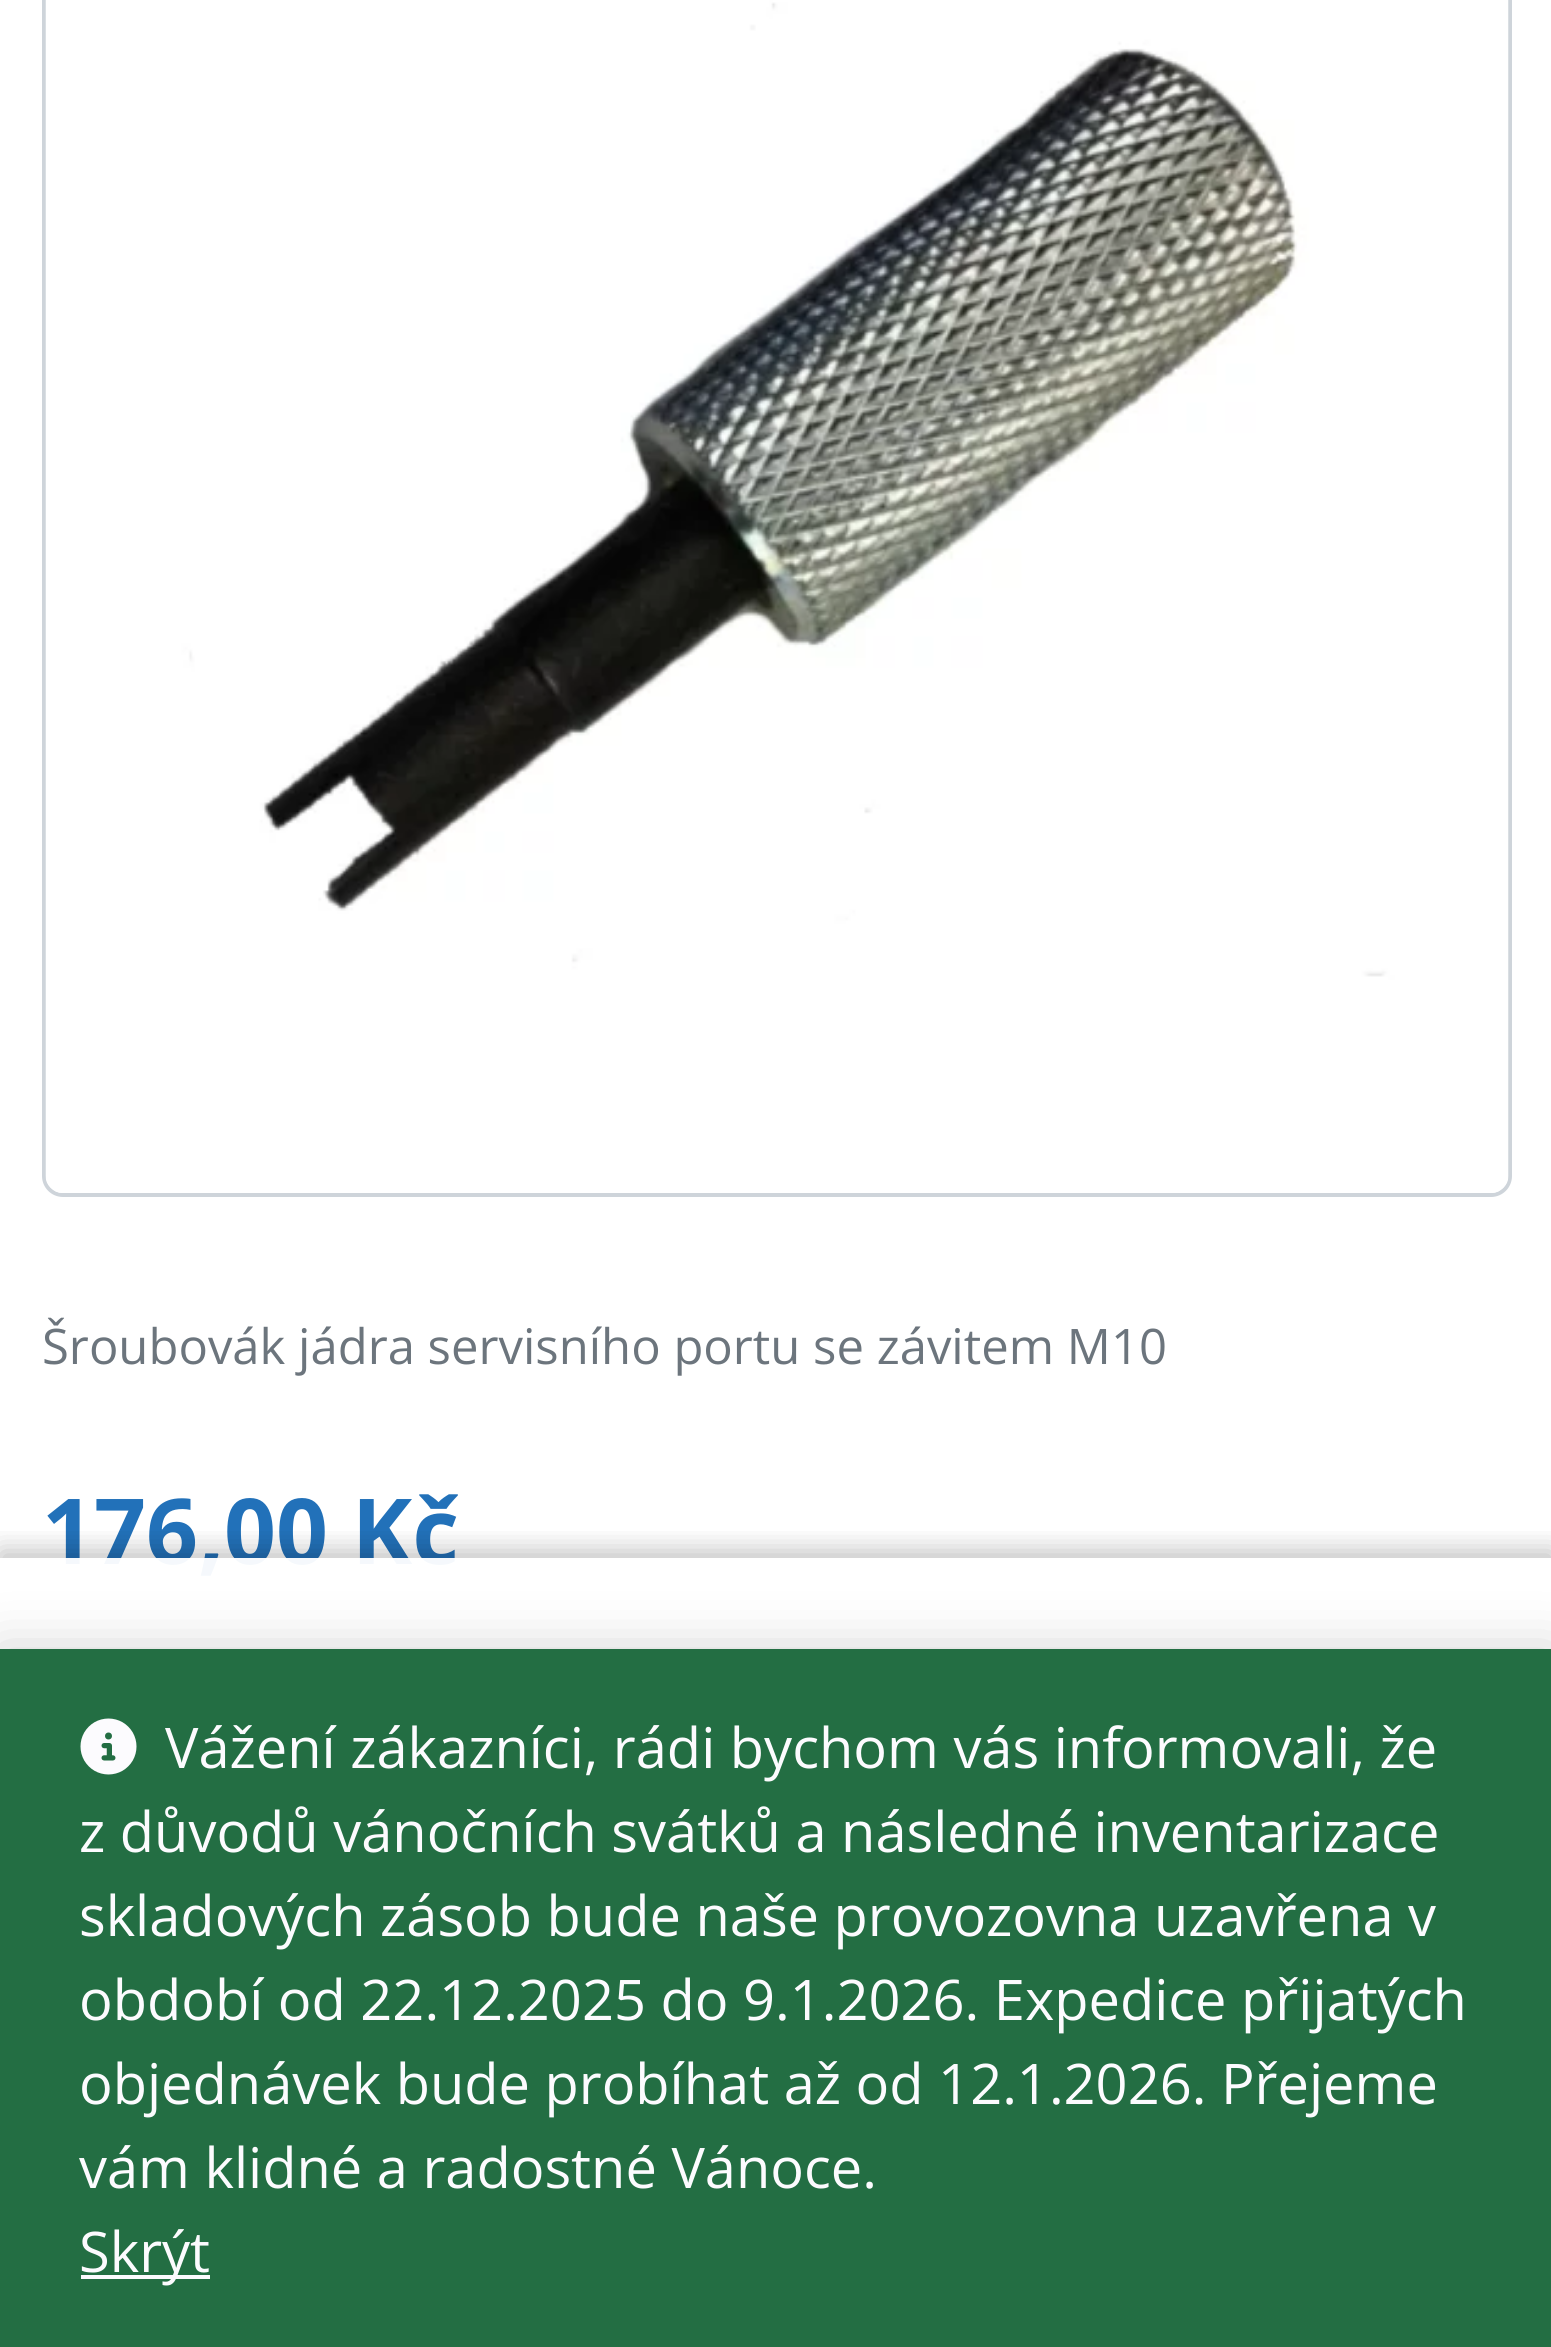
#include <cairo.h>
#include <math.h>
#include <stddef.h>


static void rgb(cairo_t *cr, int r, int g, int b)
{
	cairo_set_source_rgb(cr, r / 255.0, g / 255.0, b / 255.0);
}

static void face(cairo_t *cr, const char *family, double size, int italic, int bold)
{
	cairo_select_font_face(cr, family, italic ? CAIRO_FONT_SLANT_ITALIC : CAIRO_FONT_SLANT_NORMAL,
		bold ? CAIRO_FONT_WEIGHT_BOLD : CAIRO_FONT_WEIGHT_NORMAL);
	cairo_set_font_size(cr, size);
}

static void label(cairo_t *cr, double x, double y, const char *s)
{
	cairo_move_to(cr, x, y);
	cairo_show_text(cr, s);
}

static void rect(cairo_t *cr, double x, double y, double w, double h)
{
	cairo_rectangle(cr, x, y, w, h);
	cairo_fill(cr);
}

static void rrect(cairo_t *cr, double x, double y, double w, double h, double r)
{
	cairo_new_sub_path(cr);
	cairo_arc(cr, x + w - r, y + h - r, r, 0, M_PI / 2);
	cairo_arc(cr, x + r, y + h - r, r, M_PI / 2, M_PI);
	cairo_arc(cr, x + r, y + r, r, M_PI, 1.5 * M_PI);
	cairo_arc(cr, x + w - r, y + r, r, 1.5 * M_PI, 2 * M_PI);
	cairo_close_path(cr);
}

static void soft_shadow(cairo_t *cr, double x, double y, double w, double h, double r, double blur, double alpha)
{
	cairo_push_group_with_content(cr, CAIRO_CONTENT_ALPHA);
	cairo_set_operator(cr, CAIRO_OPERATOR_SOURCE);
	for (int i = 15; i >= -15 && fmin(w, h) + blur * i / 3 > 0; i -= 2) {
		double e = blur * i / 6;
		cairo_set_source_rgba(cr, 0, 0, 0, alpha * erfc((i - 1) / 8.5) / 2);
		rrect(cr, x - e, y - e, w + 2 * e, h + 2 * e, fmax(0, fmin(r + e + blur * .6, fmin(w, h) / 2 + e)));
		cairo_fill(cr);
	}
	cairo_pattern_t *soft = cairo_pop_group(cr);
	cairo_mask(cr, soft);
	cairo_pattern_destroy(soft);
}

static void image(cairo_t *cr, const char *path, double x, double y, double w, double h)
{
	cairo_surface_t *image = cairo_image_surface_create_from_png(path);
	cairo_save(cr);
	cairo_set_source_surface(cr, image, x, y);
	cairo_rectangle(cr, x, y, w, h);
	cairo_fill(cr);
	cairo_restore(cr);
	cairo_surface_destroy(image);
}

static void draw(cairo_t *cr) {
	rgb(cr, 255, 255, 255);
	cairo_paint(cr);
	rrect(cr, 44, -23, 1466, 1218, 19);
	rgb(cr, 206, 212, 218);
	cairo_set_line_width(cr, 4);
	cairo_stroke(cr);
	image(cr, "image0.png", 45, 0, 1464, 1193);
	face(cr, "Open Sans", 49, 0, 0);
	rgb(cr, 108, 117, 125);
	label(cr, 42, 1364, "Šroubovák jádra servisního portu se závitem M10");
	face(cr, "Open Sans", 91, 0, 1);
	rgb(cr, 34, 113, 185);
	label(cr, 42, 1564, "176,00 Kč");
	cairo_save(cr);
	cairo_rectangle(cr, 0, 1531, 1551, 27);
	cairo_clip(cr);
	rgb(cr, 0, 0, 0);
	soft_shadow(cr, 0, 1551, 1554, 791, 0, 14, 0.25);
	cairo_restore(cr);
	cairo_set_source_rgba(cr, 1, 1, 1, 0.95);
	rect(cr, 65, 1558, 390, 18);
	rgb(cr, 0, 0, 0);
	soft_shadow(cr, 0, 1652, 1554, 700, 0, 28, 0.2);
	rgb(cr, 35, 110, 67);
	rect(cr, 0, 1649, 1551, 698);
	image(cr, "image1.png", 80, 1718, 57, 57);
	face(cr, "Open Sans", 56, 0, 0);
	rgb(cr, 252, 251, 254);
	label(cr, 165, 1768, "Vážení zákazníci, rádi bychom vás informovali, že");
	label(cr, 79, 1852, "z důvodů vánočních svátků a následné inventarizace");
	label(cr, 79, 1936, "skladových zásob bude naše provozovna uzavřena v");
	label(cr, 79, 2020, "období od 22.12.2025 do 9.1.2026. Expedice přijatých");
	label(cr, 79, 2104, "objednávek bude probíhat až od 12.1.2026. Přejeme");
	label(cr, 79, 2188, "vám klidné a radostné Vánoce.");
	rect(cr, 81, 2275, 129, 4);
	label(cr, 79, 2272, "Skrýt");
}

int main(void) {
	cairo_surface_t *surface = cairo_image_surface_create(CAIRO_FORMAT_RGB24, 1551, 2347);
	cairo_t *cr = cairo_create(surface);
	cairo_font_options_t *options = cairo_font_options_create();
	cairo_font_options_set_hint_metrics(options, CAIRO_HINT_METRICS_OFF);
	cairo_font_options_set_hint_style(options, CAIRO_HINT_STYLE_NONE);
	cairo_set_font_options(cr, options);
	cairo_set_miter_limit(cr, 4);
	draw(cr);
	cairo_surface_write_to_png(surface, "render.png");
	cairo_font_options_destroy(options);
	cairo_destroy(cr);
	cairo_surface_destroy(surface);
	return 0;
}
